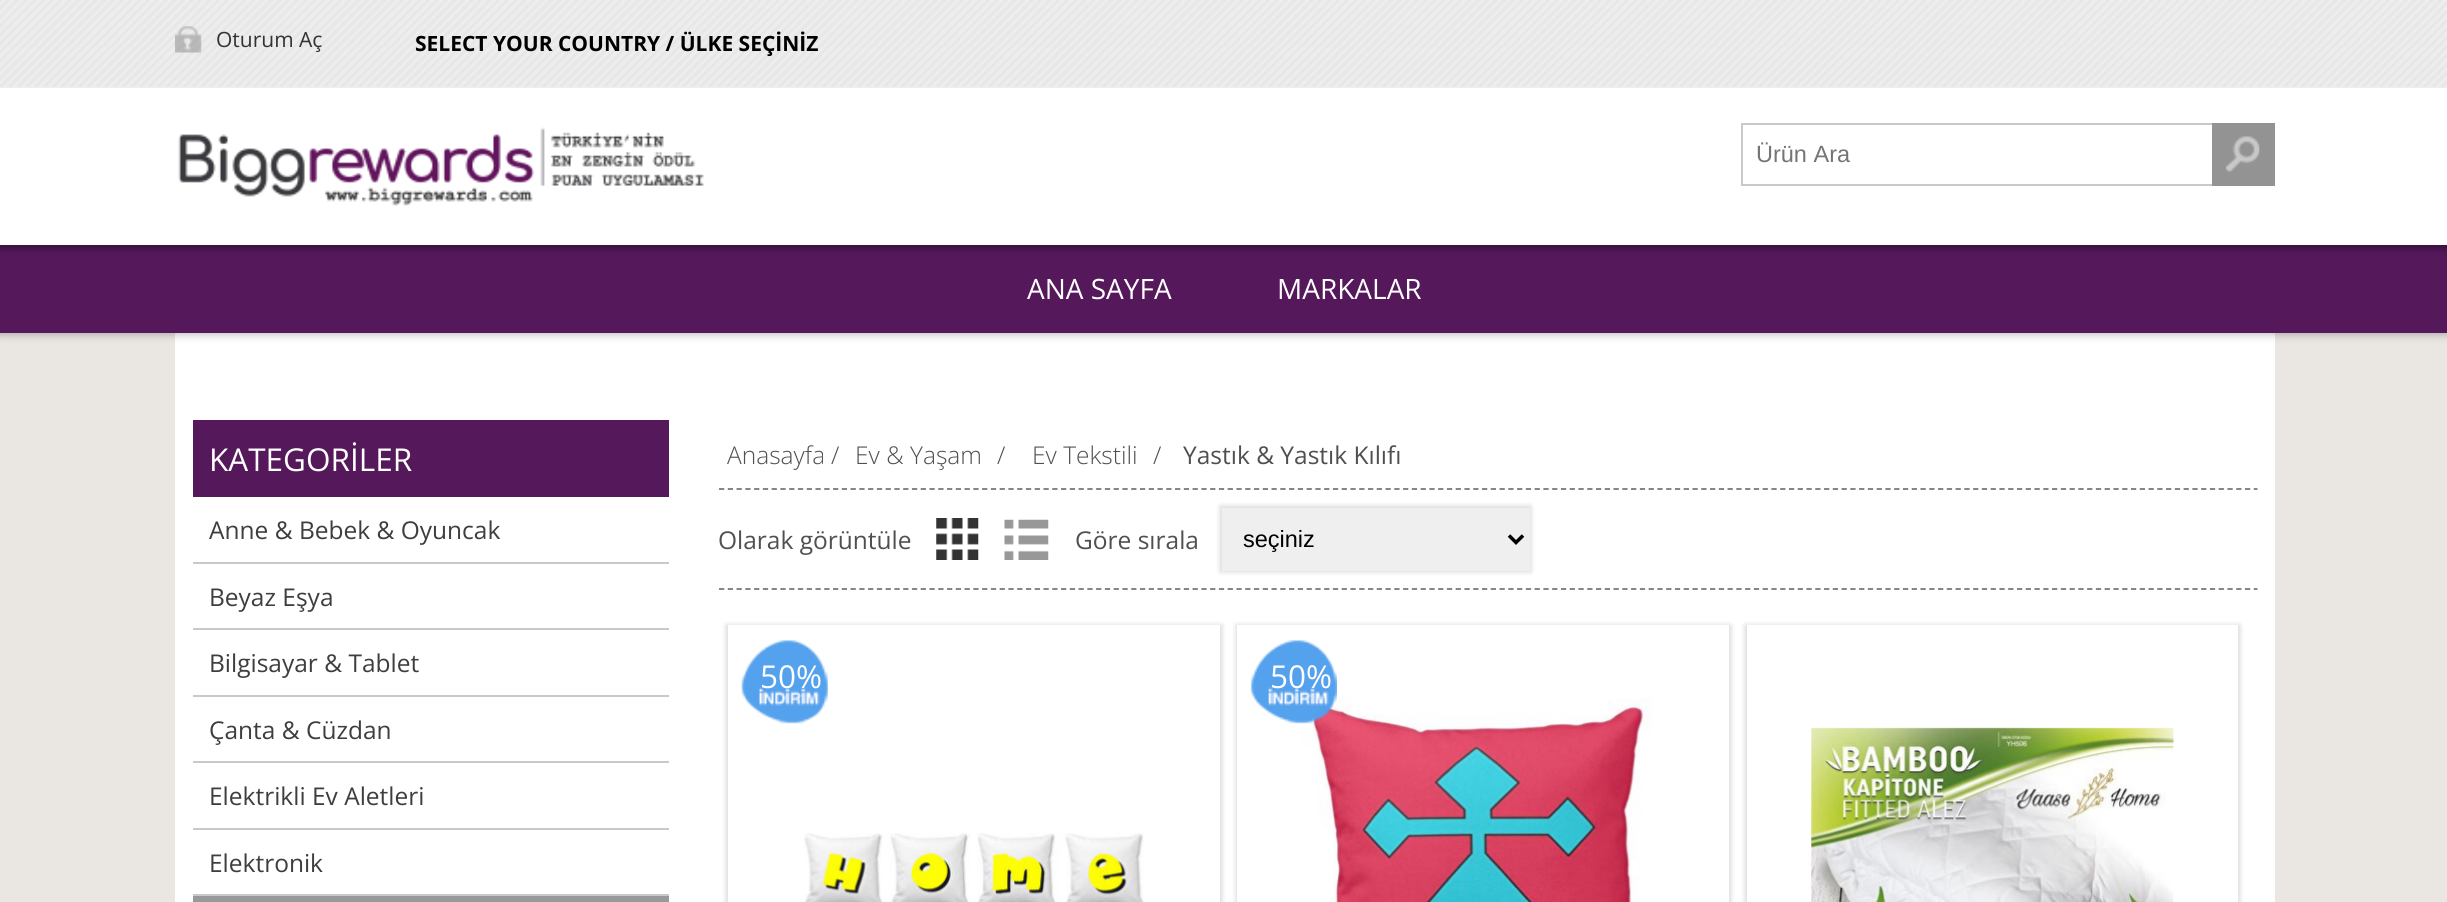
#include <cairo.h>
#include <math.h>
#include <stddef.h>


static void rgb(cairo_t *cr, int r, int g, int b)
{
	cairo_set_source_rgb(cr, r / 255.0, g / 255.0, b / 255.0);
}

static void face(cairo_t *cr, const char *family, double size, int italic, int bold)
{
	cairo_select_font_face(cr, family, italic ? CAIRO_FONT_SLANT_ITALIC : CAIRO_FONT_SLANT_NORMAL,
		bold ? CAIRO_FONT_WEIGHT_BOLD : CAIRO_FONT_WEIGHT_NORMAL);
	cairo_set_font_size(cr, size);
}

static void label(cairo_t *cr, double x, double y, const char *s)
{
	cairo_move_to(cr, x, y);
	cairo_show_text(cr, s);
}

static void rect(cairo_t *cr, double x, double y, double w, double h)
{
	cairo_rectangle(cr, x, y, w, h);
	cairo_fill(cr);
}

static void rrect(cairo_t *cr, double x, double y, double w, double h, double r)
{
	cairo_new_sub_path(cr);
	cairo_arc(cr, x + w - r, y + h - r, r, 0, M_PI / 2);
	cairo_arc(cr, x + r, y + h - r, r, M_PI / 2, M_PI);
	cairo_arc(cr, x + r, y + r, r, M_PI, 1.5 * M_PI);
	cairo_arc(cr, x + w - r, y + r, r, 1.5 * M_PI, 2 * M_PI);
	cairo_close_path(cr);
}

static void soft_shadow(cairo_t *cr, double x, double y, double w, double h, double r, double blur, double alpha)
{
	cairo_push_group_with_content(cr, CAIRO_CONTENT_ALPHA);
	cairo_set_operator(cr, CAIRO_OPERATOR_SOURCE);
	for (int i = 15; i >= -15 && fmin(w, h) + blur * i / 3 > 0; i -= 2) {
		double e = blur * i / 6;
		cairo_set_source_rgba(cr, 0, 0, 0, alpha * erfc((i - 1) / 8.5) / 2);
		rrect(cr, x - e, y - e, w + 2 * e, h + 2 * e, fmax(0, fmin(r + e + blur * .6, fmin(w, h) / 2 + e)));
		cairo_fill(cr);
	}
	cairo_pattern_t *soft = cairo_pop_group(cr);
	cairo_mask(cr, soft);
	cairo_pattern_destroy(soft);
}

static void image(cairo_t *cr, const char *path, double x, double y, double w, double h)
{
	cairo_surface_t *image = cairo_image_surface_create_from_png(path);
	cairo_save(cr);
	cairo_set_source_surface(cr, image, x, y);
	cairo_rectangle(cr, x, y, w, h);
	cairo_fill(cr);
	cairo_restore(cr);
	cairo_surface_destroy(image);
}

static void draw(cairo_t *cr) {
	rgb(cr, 234, 230, 226);
	cairo_paint(cr);
	rgb(cr, 255, 255, 255);
	rect(cr, 175, 333, 2100, 569);
	rgb(cr, 0, 0, 0);
	soft_shadow(cr, 0, 247, 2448, 87, 0, 4.5, 0.3);
	rgb(cr, 84, 24, 91);
	rect(cr, 0, 245, 2447, 88);
	rgb(cr, 0, 0, 0);
	soft_shadow(cr, -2, 0, 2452, 249, 0, 2.5, 0.15);
	soft_shadow(cr, 0, 89, 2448, 158, 0, 4.5, 0.3);
	rgb(cr, 238, 238, 238);
	rect(cr, 0, 0, 2447, 88);
	image(cr, "image0.png", 0, 0, 2447, 87);
	image(cr, "image1.png", 175, 26, 27, 27);
	face(cr, "Open Sans", 21, 0, 0);
	rgb(cr, 51, 51, 51);
	label(cr, 216, 47, "Oturum Aç");
	face(cr, "Open Sans", 21, 0, 1);
	rgb(cr, 0, 0, 0);
	label(cr, 415, 51, "SELECT YOUR COUNTRY / ÜLKE SEÇİNİZ");
	rgb(cr, 255, 255, 255);
	rect(cr, 0, 88, 2447, 157);
	image(cr, "image2.png", 178, 127, 526, 79);
	cairo_rectangle(cr, 1742, 124, 471, 61);
	rgb(cr, 201, 201, 201);
	cairo_stroke(cr);
	face(cr, "Liberation Sans", 23.5, 0, 0);
	rgb(cr, 117, 117, 117);
	label(cr, 1756, 162, "Ürün Ara");
	rgb(cr, 147, 147, 147);
	rect(cr, 2212, 123, 63, 63);
	image(cr, "image3.png", 2226, 136, 34, 36);
	face(cr, "Open Sans", 28, 0, 0);
	rgb(cr, 255, 255, 255);
	label(cr, 1027, 299, "ANA SAYFA");
	label(cr, 1277, 299, "MARKALAR");
	rgb(cr, 84, 24, 91);
	rect(cr, 193, 420, 476, 77);
	face(cr, "Open Sans", 31.5, 0, 0);
	rgb(cr, 255, 255, 255);
	label(cr, 209, 471, "KATEGORİLER");
	face(cr, "Open Sans", 24.5, 0, 0);
	rgb(cr, 62, 62, 62);
	label(cr, 209, 539, "Anne & Bebek & Oyuncak");
	rgb(cr, 201, 201, 201);
	rect(cr, 193, 562, 476, 2);
	rgb(cr, 62, 62, 62);
	label(cr, 209, 606, "Beyaz Eşya");
	rgb(cr, 201, 201, 201);
	rect(cr, 193, 628, 476, 2);
	rgb(cr, 62, 62, 62);
	label(cr, 209, 672, "Bilgisayar & Tablet");
	rgb(cr, 201, 201, 201);
	rect(cr, 193, 695, 476, 2);
	rgb(cr, 62, 62, 62);
	label(cr, 209, 739, "Çanta & Cüzdan");
	rgb(cr, 201, 201, 201);
	rect(cr, 193, 761, 476, 2);
	rgb(cr, 62, 62, 62);
	label(cr, 209, 805, "Elektrikli Ev Aletleri");
	rgb(cr, 201, 201, 201);
	rect(cr, 193, 828, 476, 2);
	rgb(cr, 62, 62, 62);
	label(cr, 209, 872, "Elektronik");
	rgb(cr, 201, 201, 201);
	rect(cr, 193, 894, 476, 2);
	rgb(cr, 153, 153, 153);
	rect(cr, 193, 896, 476, 6);
	cairo_new_path(cr);
	cairo_move_to(cr, 719, 489);
	cairo_line_to(cr, 2257.5, 489);
	rgb(cr, 121, 121, 121);
	cairo_set_line_width(cr, 1.8);
	cairo_set_dash(cr, (double[]){5.25, 3.52}, 2, 0);
	cairo_stroke(cr);
	face(cr, "Open Sans Light", 24.5, 0, 0);
	rgb(cr, 80, 80, 80);
	label(cr, 727, 464, "Anasayfa");
	label(cr, 831, 464, "/");
	label(cr, 855, 464, "Ev & Yaşam");
	label(cr, 997, 464, "/");
	label(cr, 1032, 464, "Ev Tekstili");
	label(cr, 1153, 464, "/");
	face(cr, "Open Sans", 24.5, 0, 0);
	label(cr, 1183, 464, "Yastık & Yastık Kılıfı");
	cairo_new_path(cr);
	cairo_move_to(cr, 719, 589);
	cairo_line_to(cr, 2257.5, 589);
	rgb(cr, 121, 121, 121);
	cairo_stroke(cr);
	rgb(cr, 80, 80, 80);
	label(cr, 718, 549, "Olarak görüntüle");
	image(cr, "image4.png", 936, 518, 43, 42);
	image(cr, "image5.png", 1004, 519, 45, 41);
	label(cr, 1075, 549, "Göre sırala");
	rgb(cr, 0, 0, 0);
	soft_shadow(cr, 1220, 506, 311, 66, 0, 2.5, 0.15);
	rgb(cr, 239, 239, 239);
	rect(cr, 1222, 508, 308, 63);
	cairo_new_path(cr);
	cairo_move_to(cr, 1509, 535.5);
	cairo_line_to(cr, 1516, 542.5);
	cairo_line_to(cr, 1523, 535.5);
	rgb(cr, 0, 0, 0);
	cairo_set_line_width(cr, 3.5);
	cairo_set_dash(cr, NULL, 0, 0);
	cairo_stroke(cr);
	face(cr, "Liberation Sans", 23.5, 0, 0);
	label(cr, 1243, 547, "seçiniz");
	cairo_save(cr);
	cairo_set_fill_rule(cr, CAIRO_FILL_RULE_EVEN_ODD);
	cairo_new_path(cr);
	cairo_move_to(cr, 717, 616);
	cairo_line_to(cr, 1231, 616);
	cairo_line_to(cr, 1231, 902);
	cairo_line_to(cr, 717, 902);
	cairo_close_path(cr);
	cairo_move_to(cr, 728, 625);
	cairo_line_to(cr, 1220, 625);
	cairo_line_to(cr, 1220, 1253);
	cairo_line_to(cr, 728, 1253);
	cairo_close_path(cr);
	cairo_clip(cr);
	rgb(cr, 0, 0, 0);
	soft_shadow(cr, 726, 625, 496, 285, 0, 2.5, 0.15);
	cairo_restore(cr);
	image(cr, "image6.png", 741, 640, 87, 84);
	face(cr, "Open Sans", 31.5, 0, 0);
	rgb(cr, 255, 255, 255);
	label(cr, 760, 688, "50%");
	image(cr, "image7.png", 804, 833, 340, 69);
	cairo_save(cr);
	cairo_set_fill_rule(cr, CAIRO_FILL_RULE_EVEN_ODD);
	cairo_new_path(cr);
	cairo_move_to(cr, 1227, 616);
	cairo_line_to(cr, 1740, 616);
	cairo_line_to(cr, 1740, 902);
	cairo_line_to(cr, 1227, 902);
	cairo_close_path(cr);
	cairo_move_to(cr, 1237, 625);
	cairo_line_to(cr, 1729, 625);
	cairo_line_to(cr, 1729, 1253);
	cairo_line_to(cr, 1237, 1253);
	cairo_close_path(cr);
	cairo_clip(cr);
	rgb(cr, 0, 0, 0);
	soft_shadow(cr, 1236, 625, 495, 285, 0, 2.5, 0.15);
	cairo_restore(cr);
	image(cr, "image9.png", 1302, 698, 350, 204);
	image(cr, "image8.png", 1250, 640, 87, 84);
	label(cr, 1270, 688, "50%");
	cairo_save(cr);
	cairo_set_fill_rule(cr, CAIRO_FILL_RULE_EVEN_ODD);
	cairo_new_path(cr);
	cairo_move_to(cr, 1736, 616);
	cairo_line_to(cr, 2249, 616);
	cairo_line_to(cr, 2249, 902);
	cairo_line_to(cr, 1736, 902);
	cairo_close_path(cr);
	cairo_move_to(cr, 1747, 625);
	cairo_line_to(cr, 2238, 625);
	cairo_line_to(cr, 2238, 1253);
	cairo_line_to(cr, 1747, 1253);
	cairo_close_path(cr);
	cairo_clip(cr);
	rgb(cr, 0, 0, 0);
	soft_shadow(cr, 1745, 625, 495, 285, 0, 2.5, 0.15);
	cairo_restore(cr);
	image(cr, "image10.png", 1811, 727, 364, 175);
}

int main(void) {
	cairo_surface_t *surface = cairo_image_surface_create(CAIRO_FORMAT_RGB24, 2447, 902);
	cairo_t *cr = cairo_create(surface);
	cairo_font_options_t *options = cairo_font_options_create();
	cairo_font_options_set_hint_metrics(options, CAIRO_HINT_METRICS_OFF);
	cairo_font_options_set_hint_style(options, CAIRO_HINT_STYLE_NONE);
	cairo_set_font_options(cr, options);
	cairo_set_miter_limit(cr, 4);
	draw(cr);
	cairo_surface_write_to_png(surface, "render.png");
	cairo_font_options_destroy(options);
	cairo_destroy(cr);
	cairo_surface_destroy(surface);
	return 0;
}
